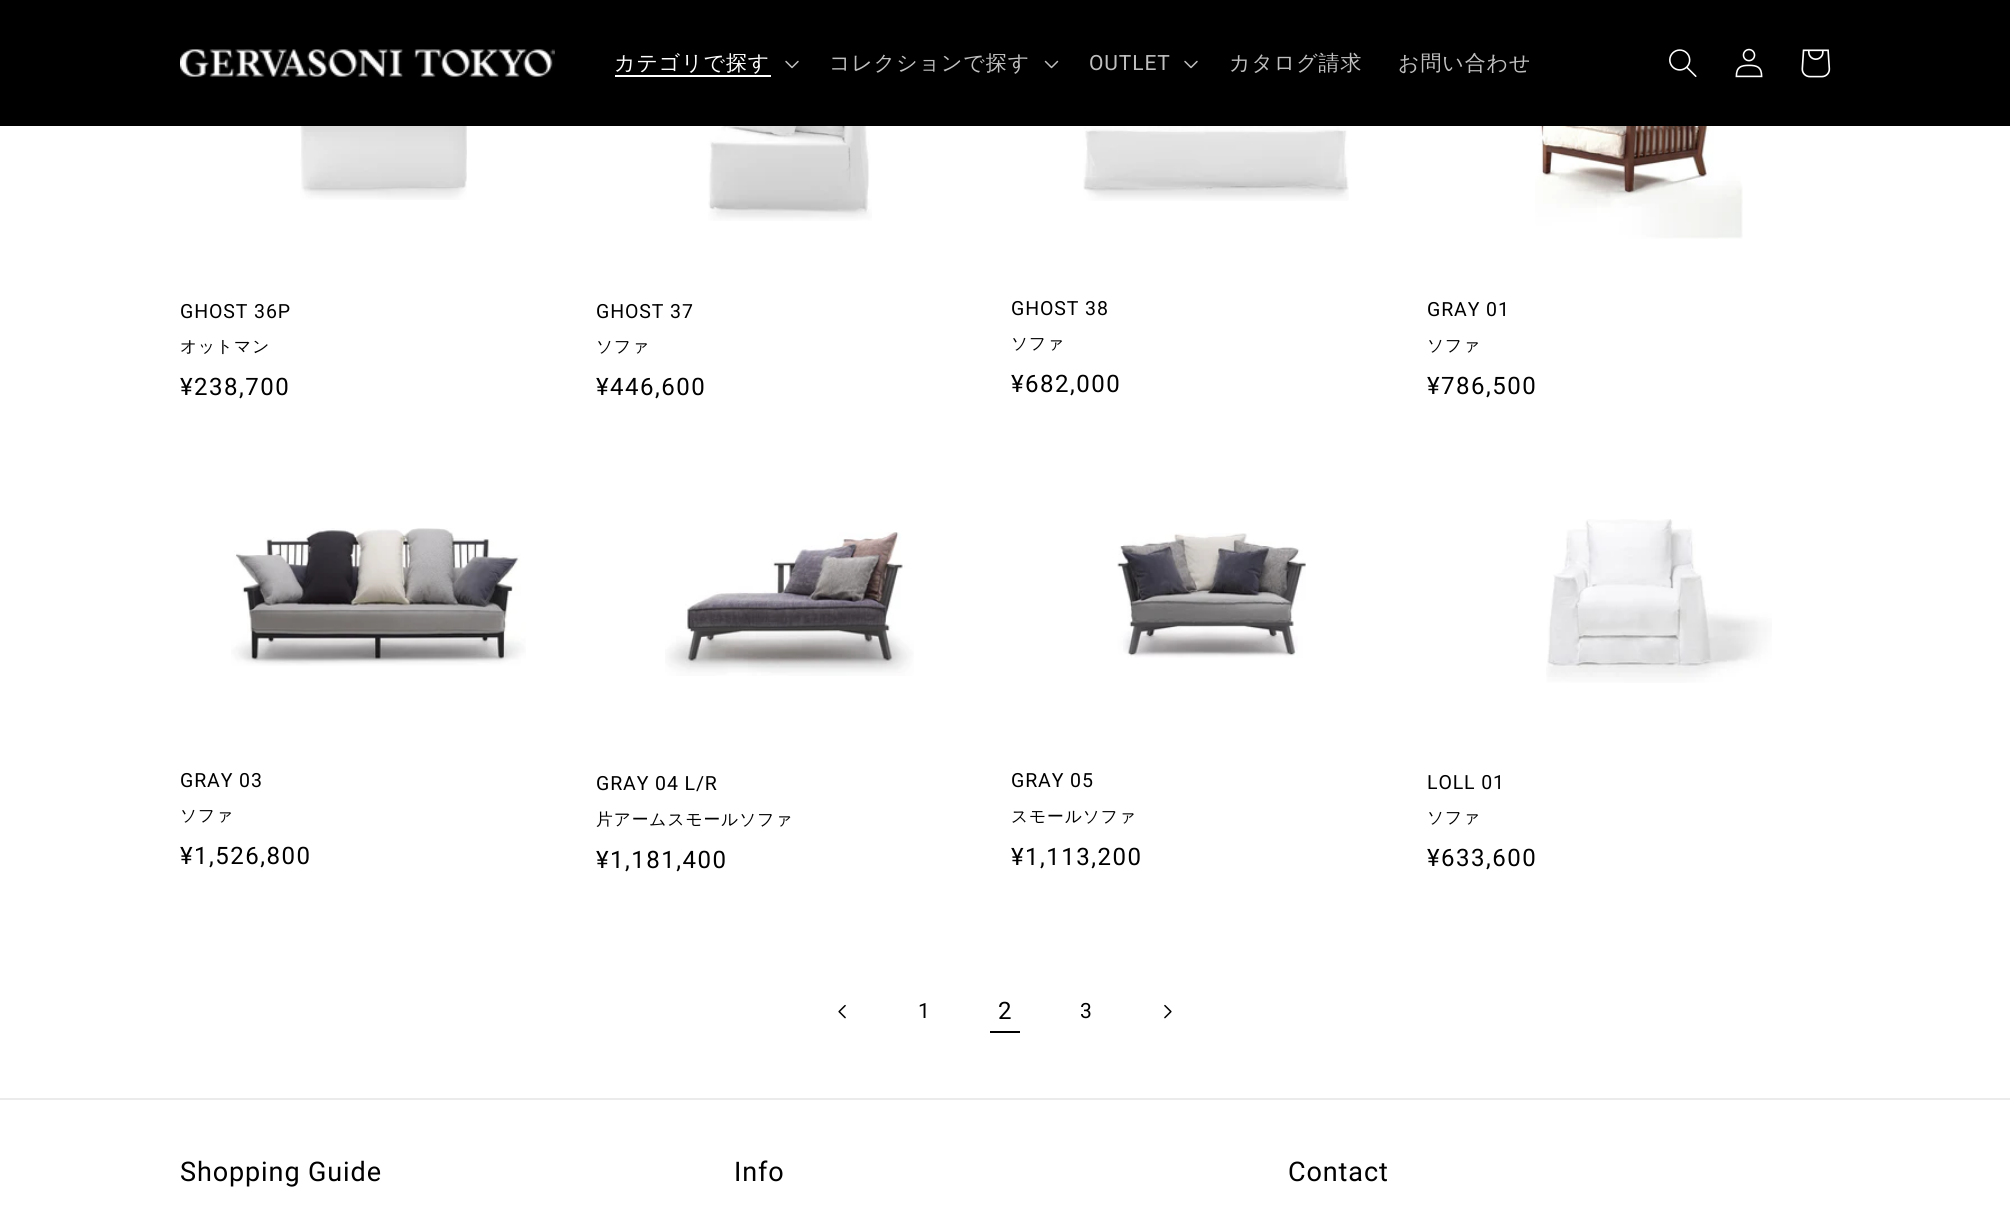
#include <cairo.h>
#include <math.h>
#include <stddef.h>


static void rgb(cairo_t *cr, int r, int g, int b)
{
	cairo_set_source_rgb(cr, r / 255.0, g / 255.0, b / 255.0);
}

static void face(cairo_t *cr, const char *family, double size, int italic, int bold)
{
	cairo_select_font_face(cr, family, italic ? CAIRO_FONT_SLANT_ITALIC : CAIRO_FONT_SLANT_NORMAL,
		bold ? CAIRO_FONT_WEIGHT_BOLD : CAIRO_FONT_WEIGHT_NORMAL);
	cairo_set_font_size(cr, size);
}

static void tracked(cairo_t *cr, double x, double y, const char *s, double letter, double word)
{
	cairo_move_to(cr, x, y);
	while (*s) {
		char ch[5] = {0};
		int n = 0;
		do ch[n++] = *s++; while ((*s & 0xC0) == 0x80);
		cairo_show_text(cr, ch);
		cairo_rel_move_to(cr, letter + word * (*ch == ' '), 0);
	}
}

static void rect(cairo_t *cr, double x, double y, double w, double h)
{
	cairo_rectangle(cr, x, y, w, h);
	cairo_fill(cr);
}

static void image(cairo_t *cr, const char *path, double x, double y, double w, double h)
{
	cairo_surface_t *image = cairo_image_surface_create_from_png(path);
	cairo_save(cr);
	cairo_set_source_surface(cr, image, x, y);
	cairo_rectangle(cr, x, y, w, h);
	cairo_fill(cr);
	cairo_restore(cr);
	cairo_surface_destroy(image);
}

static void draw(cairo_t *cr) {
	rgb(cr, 255, 255, 255);
	cairo_paint(cr);
	rgb(cr, 0, 0, 0);
	rect(cr, 0, 0, 2010, 126);
	image(cr, "image0.png", 180, 49, 375, 28);
	face(cr, "WenQuanYi Zen Hei Medium", 21, 0, 0);
	rgb(cr, 255, 255, 255);
	tracked(cr, 614, 70, "カテゴリで探す", 0.9, 0);
	rect(cr, 615, 75, 156, 2);
	image(cr, "image1.png", 785, 60, 14, 9);
	rgb(cr, 191, 191, 191);
	tracked(cr, 829, 70, "コレクションで探す", 0.9, 0);
	image(cr, "image2.png", 1044, 60, 15, 9);
	face(cr, "Roboto", 21, 0, 0);
	tracked(cr, 1089, 70, "OUTLET", 0.9, 0);
	image(cr, "image1.png", 1184, 60, 14, 9);
	face(cr, "WenQuanYi Zen Hei Medium", 21, 0, 0);
	tracked(cr, 1229, 70, "カタログ請求", 0.9, 0);
	tracked(cr, 1398, 70, "お問い合わせ", 0.9, 0);
	image(cr, "image3.png", 1669, 49, 28, 28);
	image(cr, "image4.png", 1735, 48, 28, 30);
	image(cr, "image5.png", 1801, 49, 30, 29);
	image(cr, "image6.png", 300, 126, 167, 74);
	face(cr, "Roboto", 19.5, 0, 0);
	rgb(cr, 0, 0, 0);
	tracked(cr, 180, 318, "GHOST 36P", 0.9, 0);
	face(cr, "WenQuanYi Zen Hei Medium", 16.75, 0, 0);
	tracked(cr, 180, 352, "オットマン", 0.9, 0);
	face(cr, "Roboto", 24, 0, 0);
	tracked(cr, 180, 395, "¥238,700", 1.5, 0);
	image(cr, "image7.png", 708, 126, 164, 95);
	face(cr, "Roboto", 19.5, 0, 0);
	tracked(cr, 596, 318, "GHOST 37", 0.9, 0);
	face(cr, "WenQuanYi Zen Hei Medium", 16.75, 0, 0);
	tracked(cr, 596, 352, "ソファ", 0.9, 0);
	face(cr, "Roboto", 24, 0, 0);
	tracked(cr, 596, 395, "¥446,600", 1.5, 0);
	image(cr, "image8.png", 1083, 126, 266, 75);
	face(cr, "Roboto", 19.5, 0, 0);
	tracked(cr, 1011, 315, "GHOST 38", 0.9, 0);
	face(cr, "WenQuanYi Zen Hei Medium", 16.75, 0, 0);
	tracked(cr, 1011, 349, "ソファ", 0.9, 0);
	face(cr, "Roboto", 24, 0, 0);
	tracked(cr, 1011, 392, "¥682,000", 1.5, 0);
	image(cr, "image9.png", 1535, 126, 208, 113);
	face(cr, "Roboto", 19.5, 0, 0);
	tracked(cr, 1427, 316, "GRAY 01", 0.9, 0);
	face(cr, "WenQuanYi Zen Hei Medium", 16.75, 0, 0);
	tracked(cr, 1427, 351, "ソファ", 0.9, 0);
	face(cr, "Roboto", 24, 0, 0);
	tracked(cr, 1427, 394, "¥786,500", 1.5, 0);
	image(cr, "image10.png", 231, 528, 295, 138);
	face(cr, "Roboto", 19.5, 0, 0);
	tracked(cr, 180, 787, "GRAY 03", 0.9, 0);
	face(cr, "WenQuanYi Zen Hei Medium", 16.75, 0, 0);
	tracked(cr, 180, 821, "ソファ", 0.9, 0);
	face(cr, "Roboto", 24, 0, 0);
	tracked(cr, 180, 864, "¥1,526,800", 1.5, 0);
	image(cr, "image11.png", 665, 532, 249, 144);
	face(cr, "Roboto", 19.5, 0, 0);
	tracked(cr, 596, 790, "GRAY 04 L/R", 0.9, 0);
	face(cr, "WenQuanYi Zen Hei Medium", 16.75, 0, 0);
	tracked(cr, 596, 825, "片アームスモールソファ", 0.9, 0);
	face(cr, "Roboto", 24, 0, 0);
	tracked(cr, 596, 868, "¥1,181,400", 1.5, 0);
	image(cr, "image12.png", 1117, 533, 189, 125);
	face(cr, "Roboto", 19.5, 0, 0);
	tracked(cr, 1011, 787, "GRAY 05", 0.9, 0);
	face(cr, "WenQuanYi Zen Hei Medium", 16.75, 0, 0);
	tracked(cr, 1011, 822, "スモールソファ", 0.9, 0);
	face(cr, "Roboto", 24, 0, 0);
	tracked(cr, 1011, 865, "¥1,113,200", 1.5, 0);
	image(cr, "image13.png", 1546, 519, 226, 164);
	face(cr, "Roboto", 19.5, 0, 0);
	tracked(cr, 1427, 789, "LOLL 01", 0.9, 0);
	face(cr, "WenQuanYi Zen Hei Medium", 16.75, 0, 0);
	tracked(cr, 1427, 823, "ソファ", 0.9, 0);
	face(cr, "Roboto", 24, 0, 0);
	tracked(cr, 1427, 866, "¥633,600", 1.5, 0);
	image(cr, "image14.png", 838, 1004, 8, 15);
	face(cr, "Roboto", 21, 0, 0);
	tracked(cr, 918, 1018, "1", 0.9, 0);
	face(cr, "Roboto", 24, 0, 0);
	tracked(cr, 998, 1019, "2", 0.9, 0);
	rect(cr, 990, 1031, 30, 2);
	face(cr, "Roboto", 21, 0, 0);
	tracked(cr, 1080, 1018, "3", 0.9, 0);
	image(cr, "image15.png", 1164, 1004, 8, 15);
	rgb(cr, 235, 235, 235);
	rect(cr, 0, 1098, 2010, 2);
	face(cr, "Roboto", 27, 0, 0);
	rgb(cr, 0, 0, 0);
	tracked(cr, 180, 1181, "Shopping Guide", 0.9, 0);
	tracked(cr, 734, 1181, "Info", 0.9, 0);
	tracked(cr, 1288, 1181, "Contact", 0.9, 0);
}

int main(void) {
	cairo_surface_t *surface = cairo_image_surface_create(CAIRO_FORMAT_RGB24, 2010, 1224);
	cairo_t *cr = cairo_create(surface);
	cairo_font_options_t *options = cairo_font_options_create();
	cairo_font_options_set_hint_metrics(options, CAIRO_HINT_METRICS_OFF);
	cairo_font_options_set_hint_style(options, CAIRO_HINT_STYLE_NONE);
	cairo_set_font_options(cr, options);
	cairo_set_miter_limit(cr, 4);
	draw(cr);
	cairo_surface_write_to_png(surface, "render.png");
	cairo_font_options_destroy(options);
	cairo_destroy(cr);
	cairo_surface_destroy(surface);
	return 0;
}
